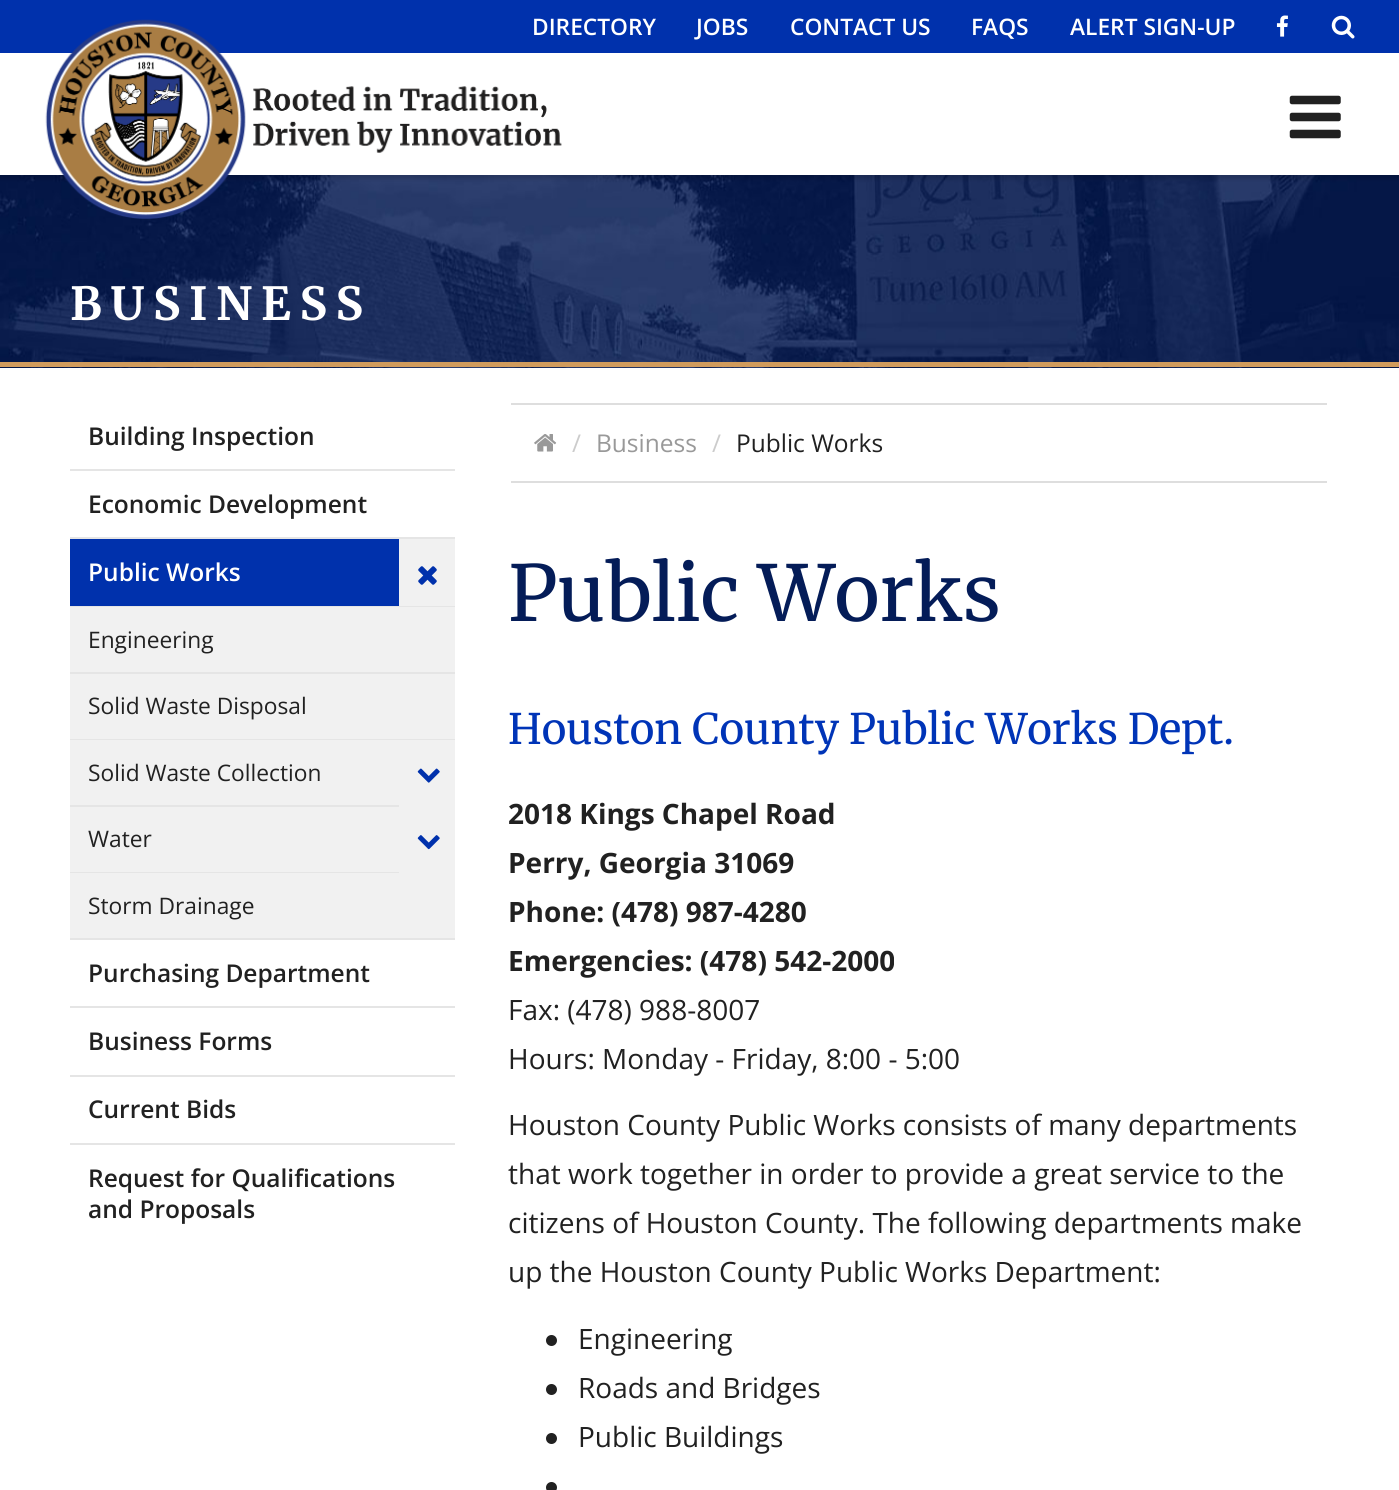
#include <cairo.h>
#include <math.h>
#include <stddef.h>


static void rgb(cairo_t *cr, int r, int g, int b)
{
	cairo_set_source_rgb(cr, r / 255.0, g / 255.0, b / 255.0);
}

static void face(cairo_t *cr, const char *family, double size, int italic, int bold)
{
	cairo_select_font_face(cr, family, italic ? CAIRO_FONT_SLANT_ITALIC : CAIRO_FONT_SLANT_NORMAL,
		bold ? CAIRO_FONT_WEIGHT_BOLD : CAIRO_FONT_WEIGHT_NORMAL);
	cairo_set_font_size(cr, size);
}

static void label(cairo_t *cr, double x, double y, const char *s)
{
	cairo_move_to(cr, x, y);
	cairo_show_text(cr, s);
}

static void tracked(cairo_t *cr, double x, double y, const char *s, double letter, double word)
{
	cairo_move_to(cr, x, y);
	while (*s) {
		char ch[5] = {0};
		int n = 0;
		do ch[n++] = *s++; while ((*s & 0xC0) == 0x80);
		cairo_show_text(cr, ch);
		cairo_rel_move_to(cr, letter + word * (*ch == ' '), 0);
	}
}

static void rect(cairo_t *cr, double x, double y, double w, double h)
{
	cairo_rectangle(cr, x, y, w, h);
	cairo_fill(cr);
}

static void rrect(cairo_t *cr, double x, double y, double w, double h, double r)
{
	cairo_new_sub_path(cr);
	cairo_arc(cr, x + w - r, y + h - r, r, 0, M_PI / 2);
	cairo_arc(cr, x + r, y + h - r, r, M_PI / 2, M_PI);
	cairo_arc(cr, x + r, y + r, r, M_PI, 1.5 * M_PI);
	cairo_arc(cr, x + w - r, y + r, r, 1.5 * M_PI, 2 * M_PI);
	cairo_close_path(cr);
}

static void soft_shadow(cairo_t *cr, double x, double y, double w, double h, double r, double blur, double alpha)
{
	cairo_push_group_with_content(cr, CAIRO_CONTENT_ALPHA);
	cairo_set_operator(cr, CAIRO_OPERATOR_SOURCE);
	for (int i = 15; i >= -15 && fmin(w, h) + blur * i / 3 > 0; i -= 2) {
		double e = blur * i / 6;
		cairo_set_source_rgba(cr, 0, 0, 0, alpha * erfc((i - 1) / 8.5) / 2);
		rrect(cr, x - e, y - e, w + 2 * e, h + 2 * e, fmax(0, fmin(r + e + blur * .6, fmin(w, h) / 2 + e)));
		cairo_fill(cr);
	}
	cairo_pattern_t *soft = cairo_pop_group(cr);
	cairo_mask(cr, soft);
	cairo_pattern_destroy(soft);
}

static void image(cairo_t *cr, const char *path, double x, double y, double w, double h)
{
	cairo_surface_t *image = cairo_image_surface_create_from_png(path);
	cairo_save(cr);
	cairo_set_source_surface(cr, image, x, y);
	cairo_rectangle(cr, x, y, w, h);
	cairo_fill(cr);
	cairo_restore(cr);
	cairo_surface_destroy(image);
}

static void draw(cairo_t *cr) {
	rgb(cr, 255, 255, 255);
	cairo_paint(cr);
	image(cr, "image8.png", 0, 175, 1399, 193);
	rgb(cr, 0, 0, 0);
	soft_shadow(cr, -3, -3, 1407, 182, 0, 2, 0.15);
	rgb(cr, 255, 255, 255);
	rect(cr, 0, 53, 1399, 122);
	rgb(cr, 0, 49, 172);
	rect(cr, 0, 0, 1399, 53);
	image(cr, "image0.png", 45, 19, 517, 200);
	face(cr, "Open Sans SemiBold", 22.75, 0, 0);
	rgb(cr, 255, 255, 255);
	label(cr, 532, 35, "DIRECTORY");
	label(cr, 696, 35, "JOBS");
	label(cr, 790, 35, "CONTACT US");
	label(cr, 971, 35, "FAQS");
	label(cr, 1070, 35, "ALERT SIGN-UP");
	image(cr, "image1.png", 1276, 15, 12, 22);
	image(cr, "image2.png", 1331, 15, 24, 24);
	image(cr, "image3.png", 1289, 95, 52, 44);
	rgb(cr, 208, 155, 92);
	rect(cr, 0, 362, 1399, 5);
	face(cr, "Merriweather", 45.5, 0, 1);
	rgb(cr, 255, 255, 255);
	tracked(cr, 70, 320, "BUSINESS", 8.75, 0);
	rgb(cr, 229, 229, 229);
	rect(cr, 70, 469, 385, 2);
	face(cr, "Open Sans SemiBold", 24.5, 0, 0);
	rgb(cr, 33, 33, 33);
	label(cr, 88, 445, "Building Inspection");
	rgb(cr, 229, 229, 229);
	rect(cr, 70, 537, 385, 2);
	rgb(cr, 33, 33, 33);
	label(cr, 88, 513, "Economic Development");
	rgb(cr, 0, 49, 172);
	rect(cr, 70, 539, 329, 67);
	rgb(cr, 229, 229, 229);
	rect(cr, 70, 606, 385, 1);
	rgb(cr, 255, 255, 255);
	label(cr, 88, 581, "Public Works");
	rgb(cr, 241, 241, 241);
	rect(cr, 399, 539, 56, 67);
	image(cr, "image4.png", 418, 566, 19, 19);
	rect(cr, 70, 607, 385, 65);
	rgb(cr, 229, 229, 229);
	rect(cr, 70, 672, 385, 2);
	face(cr, "Open Sans", 22.75, 0, 0);
	rgb(cr, 33, 33, 33);
	label(cr, 88, 648, "Engineering");
	rgb(cr, 241, 241, 241);
	rect(cr, 70, 674, 385, 65);
	rgb(cr, 229, 229, 229);
	rect(cr, 70, 739, 385, 1);
	rgb(cr, 33, 33, 33);
	label(cr, 88, 714, "Solid Waste Disposal");
	rgb(cr, 241, 241, 241);
	rect(cr, 70, 740, 329, 65);
	rgb(cr, 229, 229, 229);
	rect(cr, 70, 805, 329, 2);
	rgb(cr, 33, 33, 33);
	label(cr, 88, 781, "Solid Waste Collection");
	rgb(cr, 241, 241, 241);
	rect(cr, 399, 740, 56, 133);
	image(cr, "image5.png", 417, 768, 23, 15);
	rect(cr, 70, 807, 329, 65);
	rgb(cr, 229, 229, 229);
	rect(cr, 70, 872, 329, 1);
	rgb(cr, 33, 33, 33);
	label(cr, 88, 847, "Water");
	image(cr, "image6.png", 417, 835, 23, 15);
	rgb(cr, 241, 241, 241);
	rect(cr, 70, 873, 385, 65);
	rgb(cr, 229, 229, 229);
	rect(cr, 70, 938, 385, 2);
	rgb(cr, 33, 33, 33);
	label(cr, 88, 914, "Storm Drainage");
	rgb(cr, 229, 229, 229);
	rect(cr, 70, 1006, 385, 2);
	face(cr, "Open Sans SemiBold", 24.5, 0, 0);
	rgb(cr, 33, 33, 33);
	label(cr, 88, 982, "Purchasing Department");
	rgb(cr, 229, 229, 229);
	rect(cr, 70, 1075, 385, 2);
	rgb(cr, 33, 33, 33);
	label(cr, 88, 1050, "Business Forms");
	rgb(cr, 229, 229, 229);
	rect(cr, 70, 1143, 385, 2);
	rgb(cr, 33, 33, 33);
	label(cr, 88, 1118, "Current Bids");
	label(cr, 88, 1187, "Request for Qualifications");
	label(cr, 88, 1218, "and Proposals");
	rgb(cr, 222, 222, 222);
	rect(cr, 511, 403, 816, 2);
	rect(cr, 511, 481, 816, 2);
	image(cr, "image7.png", 534, 434, 23, 18);
	face(cr, "Open Sans", 24.5, 0, 0);
	rgb(cr, 204, 204, 204);
	label(cr, 572, 452, "/");
	rgb(cr, 153, 153, 153);
	label(cr, 596, 452, "Business");
	rgb(cr, 204, 204, 204);
	label(cr, 712, 452, "/");
	rgb(cr, 33, 33, 33);
	label(cr, 736, 452, "Public Works");
	face(cr, "Merriweather", 77, 0, 0);
	rgb(cr, 4, 28, 88);
	label(cr, 508, 621, "Public Works");
	face(cr, "Merriweather", 42, 0, 0);
	rgb(cr, 0, 52, 183);
	label(cr, 508, 744, "Houston County Public Works Dept.");
	face(cr, "Open Sans", 28, 0, 1);
	rgb(cr, 33, 33, 33);
	label(cr, 508, 824, "2018 Kings Chapel Road");
	label(cr, 508, 873, "Perry, Georgia 31069");
	label(cr, 508, 922, "Phone: (478) 987-4280");
	label(cr, 508, 971, "Emergencies: (478) 542-2000");
	face(cr, "Open Sans", 28, 0, 0);
	label(cr, 508, 1020, "Fax: (478) 988-8007");
	label(cr, 508, 1069, "Hours: Monday - Friday, 8:00 - 5:00");
	label(cr, 508, 1135, "Houston County Public Works consists of many departments");
	label(cr, 508, 1184, "that work together in order to provide a great service to the");
	label(cr, 508, 1233, "citizens of Houston County. The following departments make");
	label(cr, 508, 1282, "up the Houston County Public Works Department:");
	cairo_new_path(cr);
	cairo_arc(cr, 551.5, 1340.5, 5.5, 0, 2 * M_PI);
	cairo_fill(cr);
	label(cr, 578, 1349, "Engineering");
	cairo_new_path(cr);
	cairo_arc(cr, 551.5, 1389.5, 5.5, 0, 2 * M_PI);
	cairo_fill(cr);
	label(cr, 578, 1398, "Roads and Bridges");
	cairo_new_path(cr);
	cairo_arc(cr, 551.5, 1438.5, 5.5, 0, 2 * M_PI);
	cairo_fill(cr);
	label(cr, 578, 1447, "Public Buildings");
	cairo_new_path(cr);
	cairo_arc(cr, 551.5, 1487.5, 5.5, 0, 2 * M_PI);
	cairo_fill(cr);
}

int main(void) {
	cairo_surface_t *surface = cairo_image_surface_create(CAIRO_FORMAT_RGB24, 1399, 1490);
	cairo_t *cr = cairo_create(surface);
	cairo_font_options_t *options = cairo_font_options_create();
	cairo_font_options_set_hint_metrics(options, CAIRO_HINT_METRICS_OFF);
	cairo_font_options_set_hint_style(options, CAIRO_HINT_STYLE_NONE);
	cairo_set_font_options(cr, options);
	cairo_set_miter_limit(cr, 4);
	draw(cr);
	cairo_surface_write_to_png(surface, "render.png");
	cairo_font_options_destroy(options);
	cairo_destroy(cr);
	cairo_surface_destroy(surface);
	return 0;
}
